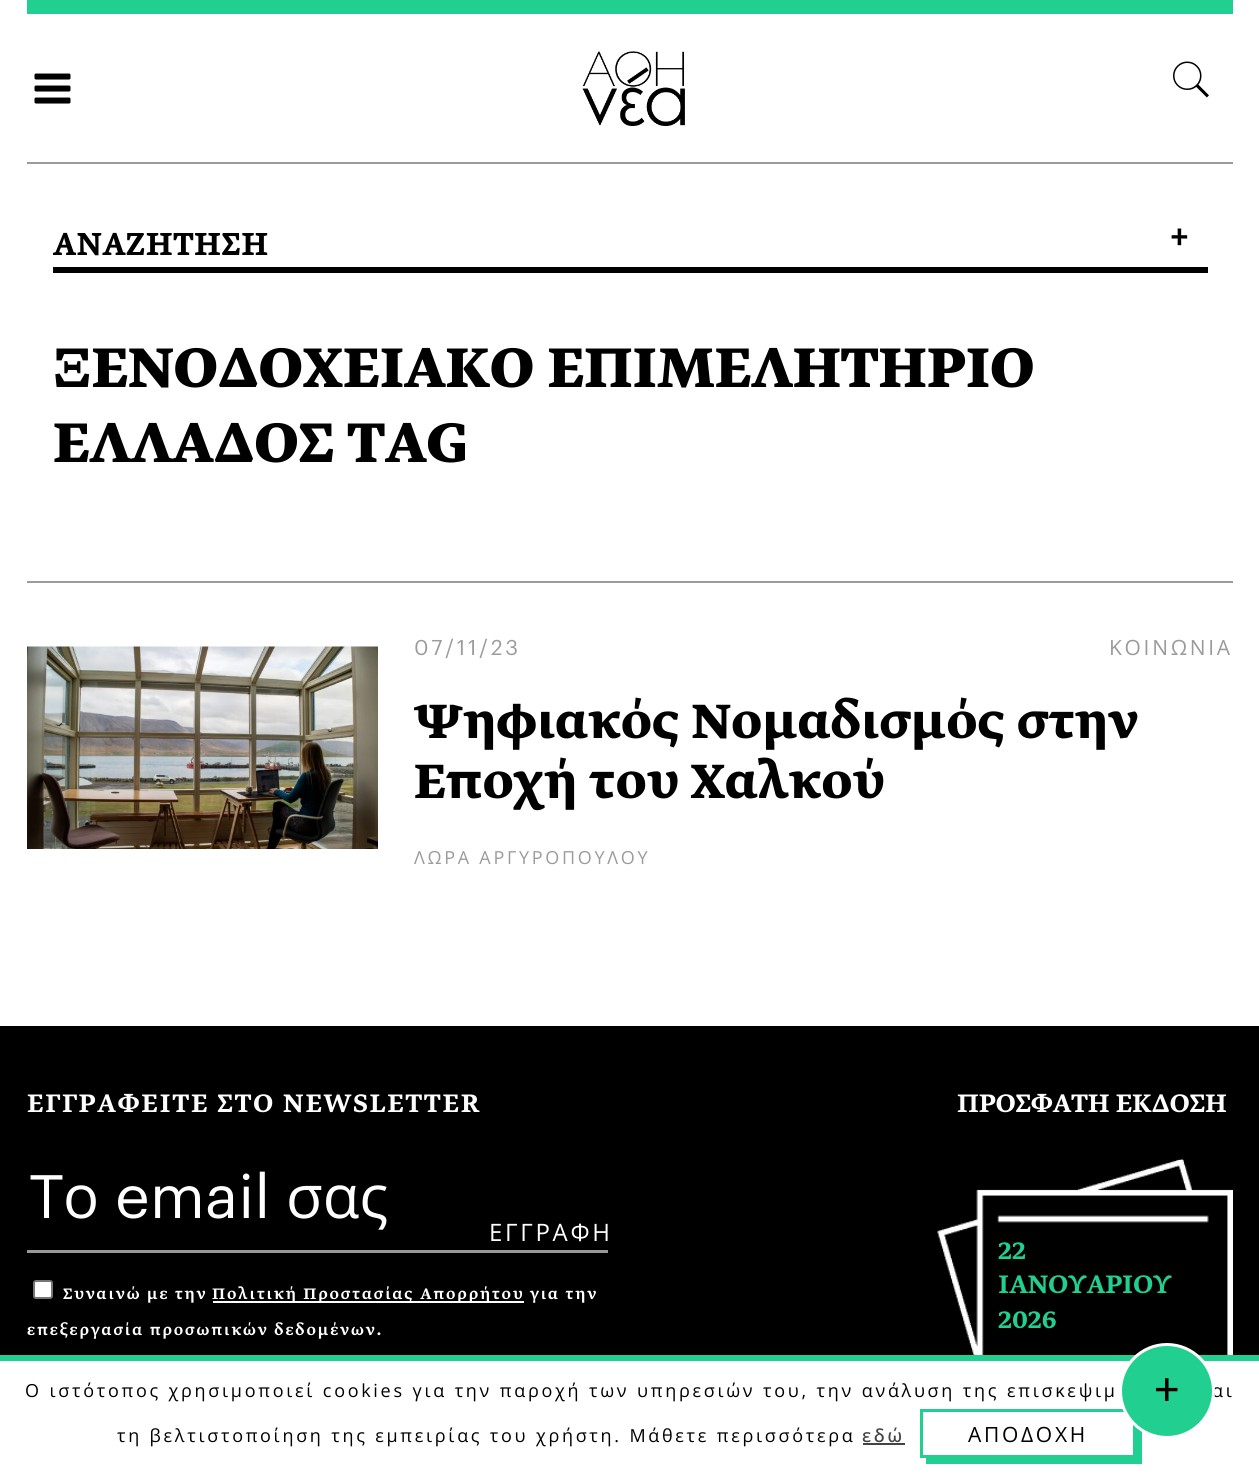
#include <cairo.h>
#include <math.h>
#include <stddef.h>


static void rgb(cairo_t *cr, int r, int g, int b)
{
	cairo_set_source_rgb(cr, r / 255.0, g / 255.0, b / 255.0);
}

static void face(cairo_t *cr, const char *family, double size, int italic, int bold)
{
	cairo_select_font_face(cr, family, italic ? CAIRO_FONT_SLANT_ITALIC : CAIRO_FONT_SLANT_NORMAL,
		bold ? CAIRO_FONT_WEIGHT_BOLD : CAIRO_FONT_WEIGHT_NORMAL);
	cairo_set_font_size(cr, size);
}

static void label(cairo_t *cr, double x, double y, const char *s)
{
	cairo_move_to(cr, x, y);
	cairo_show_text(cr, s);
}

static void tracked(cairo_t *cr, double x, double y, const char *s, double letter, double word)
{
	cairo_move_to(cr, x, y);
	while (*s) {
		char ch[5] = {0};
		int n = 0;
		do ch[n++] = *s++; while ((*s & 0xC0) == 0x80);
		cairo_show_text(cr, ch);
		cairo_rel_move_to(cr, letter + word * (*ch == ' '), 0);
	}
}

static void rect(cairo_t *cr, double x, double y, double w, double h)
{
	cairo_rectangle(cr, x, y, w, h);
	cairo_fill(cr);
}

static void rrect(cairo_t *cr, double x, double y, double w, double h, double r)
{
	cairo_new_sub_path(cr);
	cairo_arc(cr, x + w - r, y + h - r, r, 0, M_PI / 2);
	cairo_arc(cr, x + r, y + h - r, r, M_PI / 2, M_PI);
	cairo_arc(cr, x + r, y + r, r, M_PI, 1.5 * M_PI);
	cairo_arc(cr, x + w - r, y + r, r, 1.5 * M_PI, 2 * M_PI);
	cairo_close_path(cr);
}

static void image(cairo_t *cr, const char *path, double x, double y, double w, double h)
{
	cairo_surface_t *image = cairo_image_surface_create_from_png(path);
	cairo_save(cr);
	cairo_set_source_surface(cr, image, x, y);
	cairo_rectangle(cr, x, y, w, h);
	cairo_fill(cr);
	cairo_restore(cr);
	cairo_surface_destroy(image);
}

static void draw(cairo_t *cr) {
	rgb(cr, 255, 255, 255);
	cairo_paint(cr);
	rgb(cr, 33, 207, 144);
	rect(cr, 27, 0, 1206, 14);
	rgb(cr, 155, 155, 155);
	rect(cr, 27, 162, 1206, 2);
	image(cr, "image0.png", 34, 73, 37, 31);
	image(cr, "image1.png", 582, 51, 103, 75);
	image(cr, "image2.png", 1173, 61, 36, 37);
	rgb(cr, 0, 0, 0);
	rect(cr, 53, 267, 1155, 6);
	face(cr, "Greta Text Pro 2", 36, 0, 1);
	tracked(cr, 53, 255, "ΑΝΑΖΗΤΗΣΗ", 1.5, 0);
	tracked(cr, 1170, 248, "+", 1.5, 0);
	face(cr, "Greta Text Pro", 66, 0, 1);
	label(cr, 53, 387, "ΞΕΝΟΔΟΧΕΙΑΚΟ ΕΠΙΜΕΛΗΤΗΡΙΟ");
	label(cr, 53, 462, "ΕΛΛΑΔΟΣ TAG");
	rgb(cr, 155, 155, 155);
	rect(cr, 27, 581, 1206, 2);
	image(cr, "image3.png", 27, 646, 351, 203);
	face(cr, "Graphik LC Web", 21, 0, 0);
	tracked(cr, 414, 655, "07/11/23", 2.7, 0);
	face(cr, "Open Sans", 21, 0, 0);
	tracked(cr, 1109, 655, "ΚΟΙΝΩΝΙΑ", 2.7, 0);
	face(cr, "Greta Text Pro", 57, 0, 1);
	rgb(cr, 0, 0, 0);
	label(cr, 414, 738, "Ψηφιακός Nομαδισμός στην");
	label(cr, 414, 798, "Eποχή του Xαλκού");
	face(cr, "Open Sans", 18, 0, 0);
	rgb(cr, 155, 155, 155);
	tracked(cr, 414, 864, "ΛΩΡΑ ΑΡΓΥΡΟΠΟΥΛΟΥ", 2.7, 0);
	rgb(cr, 0, 0, 0);
	rect(cr, 0, 1026, 1259, 329);
	face(cr, "Greta Text Pro Medium", 30, 0, 0);
	rgb(cr, 255, 255, 255);
	tracked(cr, 27, 1112, "ΕΓΓΡΑΦΕΙΤΕ ΣΤΟ NEWSLETTER", 1.9, 0);
	face(cr, "Open Sans", 60, 0, 0);
	label(cr, 30, 1218, "Το");
	face(cr, "Graphik LC Web", 60, 0, 0);
	label(cr, 115, 1218, "email");
	face(cr, "Open Sans", 60, 0, 0);
	label(cr, 286, 1218, "σας");
	face(cr, "Open Sans", 24, 0, 0);
	tracked(cr, 489, 1241, "ΕΓΓΡΑΦΗ", 2.7, 0);
	rgb(cr, 151, 151, 151);
	rect(cr, 27, 1250, 581, 3);
	rgb(cr, 255, 255, 255);
	rrect(cr, 34, 1281, 18, 17, 2);
	cairo_fill_preserve(cr);
	rgb(cr, 118, 118, 118);
	cairo_stroke(cr);
	face(cr, "Greta Text Pro Medium", 18, 0, 0);
	rgb(cr, 255, 255, 255);
	tracked(cr, 63, 1299, "Συναινώ με την", 1.9, 0);
	rect(cr, 213, 1301, 311, 2);
	tracked(cr, 212, 1299, "Πολιτική Προστασίας Απορρήτου για την", 1.9, 0);
	tracked(cr, 27, 1335, "επεξεργασία προσωπικών δεδομένων.", 1.9, 0);
	face(cr, "Greta Text Pro Medium", 30, 0, 0);
	label(cr, 957, 1112, "ΠΡΟΣΦΑΤΗ ΕΚΔΟΣΗ");
	image(cr, "image4.png", 937, 1159, 296, 196);
	rgb(cr, 33, 207, 144);
	label(cr, 998, 1259, "22");
	label(cr, 998, 1293, "ΙΑΝΟΥΑΡΙΟΥ");
	label(cr, 998, 1328, "2026");
	rect(cr, 0, 1355, 1259, 6);
	face(cr, "Open Sans", 18, 0, 0);
	rgb(cr, 0, 0, 0);
	tracked(cr, 1212, 1397, "αι", 2.7, 0.4);
	rgb(cr, 33, 207, 144);
	cairo_new_path(cr);
	cairo_move_to(cr, 926, 1458);
	cairo_line_to(cr, 926, 1464);
	cairo_line_to(cr, 1142, 1464);
	cairo_line_to(cr, 1142, 1415);
	cairo_line_to(cr, 1136, 1415);
	cairo_line_to(cr, 1136, 1458);
	cairo_close_path(cr);
	cairo_fill(cr);
	cairo_rectangle(cr, 921.5, 1410.5, 213, 46);
	cairo_set_line_width(cr, 3);
	cairo_stroke(cr);
	cairo_arc(cr, 1167, 1391, 46.5, 0, 2 * M_PI);
	cairo_fill_preserve(cr);
	rgb(cr, 255, 255, 255);
	cairo_stroke(cr);
	face(cr, "Graphik LC Web", 48, 0, 0);
	rgb(cr, 0, 0, 0);
	label(cr, 1154, 1406, "+");
	face(cr, "Open Sans", 18, 0, 0);
	tracked(cr, 25, 1397, "Ο ιστότοπος χρησιμοποιεί cookies για την παροχή των υπηρεσιών του, την ανάλυση της επισκεψιμ", 2.7, 0.4);
	tracked(cr, 117, 1442, "τη βελτιστοποίηση της εμπειρίας του χρήστη. Μάθετε περισσότερα", 2.7, 0.25);
	face(cr, "Open Sans Medium", 18, 0, 0);
	rgb(cr, 68, 68, 68);
	tracked(cr, 862, 1442, "εδώ", 2.7, 0);
	rect(cr, 863, 1443, 42, 2);
	face(cr, "Open Sans", 21, 0, 0);
	rgb(cr, 0, 0, 0);
	tracked(cr, 968, 1442, "ΑΠΟΔΟΧΗ", 2.7, 0);
}

int main(void) {
	cairo_surface_t *surface = cairo_image_surface_create(CAIRO_FORMAT_RGB24, 1259, 1483);
	cairo_t *cr = cairo_create(surface);
	cairo_font_options_t *options = cairo_font_options_create();
	cairo_font_options_set_hint_metrics(options, CAIRO_HINT_METRICS_OFF);
	cairo_font_options_set_hint_style(options, CAIRO_HINT_STYLE_NONE);
	cairo_set_font_options(cr, options);
	cairo_set_miter_limit(cr, 4);
	draw(cr);
	cairo_surface_write_to_png(surface, "render.png");
	cairo_font_options_destroy(options);
	cairo_destroy(cr);
	cairo_surface_destroy(surface);
	return 0;
}
